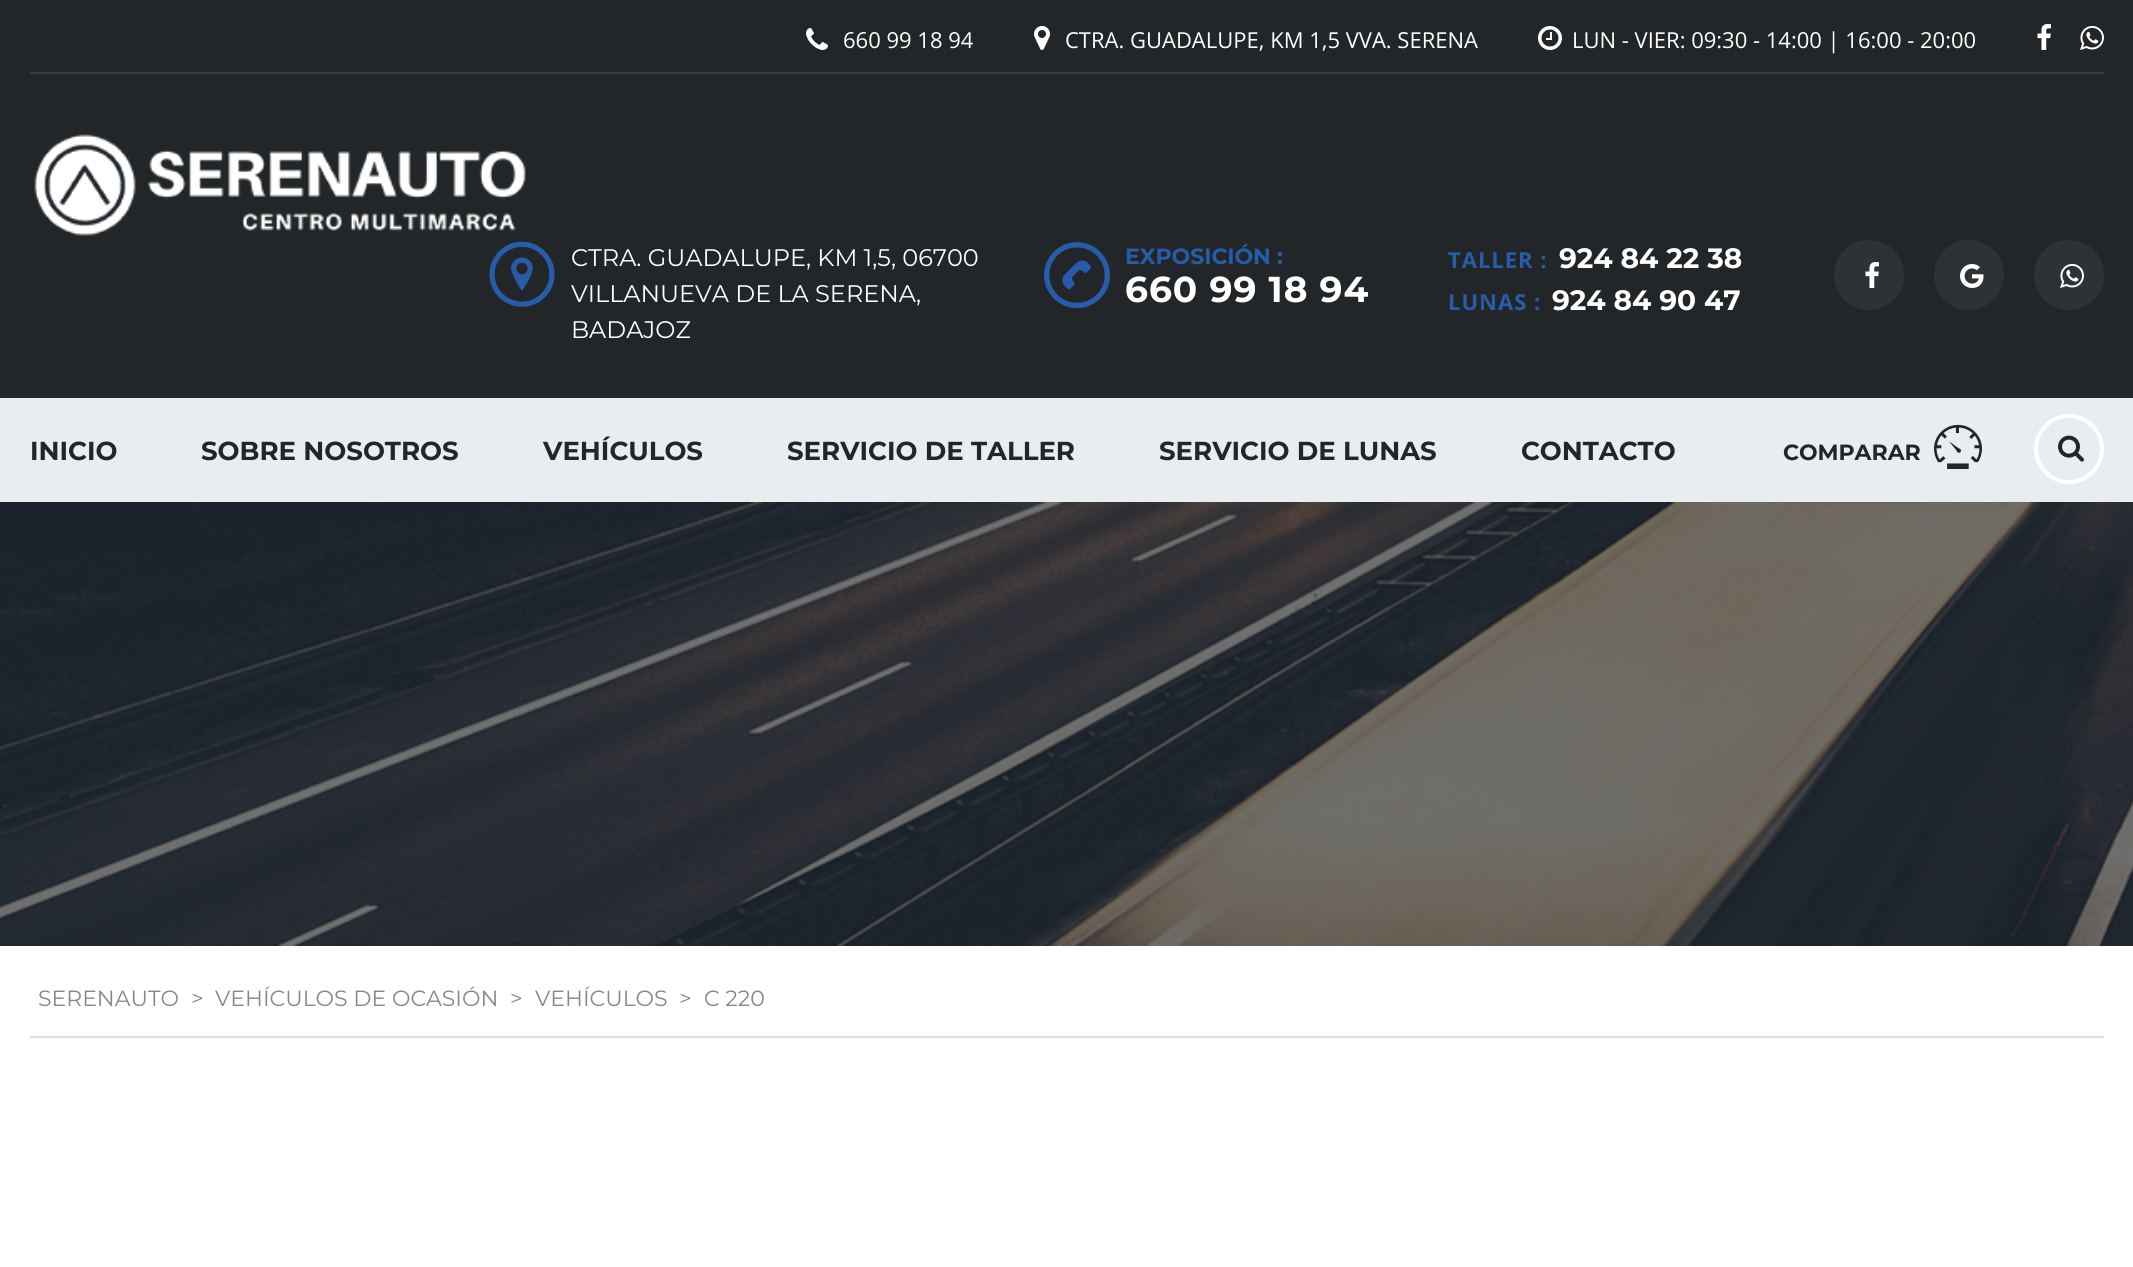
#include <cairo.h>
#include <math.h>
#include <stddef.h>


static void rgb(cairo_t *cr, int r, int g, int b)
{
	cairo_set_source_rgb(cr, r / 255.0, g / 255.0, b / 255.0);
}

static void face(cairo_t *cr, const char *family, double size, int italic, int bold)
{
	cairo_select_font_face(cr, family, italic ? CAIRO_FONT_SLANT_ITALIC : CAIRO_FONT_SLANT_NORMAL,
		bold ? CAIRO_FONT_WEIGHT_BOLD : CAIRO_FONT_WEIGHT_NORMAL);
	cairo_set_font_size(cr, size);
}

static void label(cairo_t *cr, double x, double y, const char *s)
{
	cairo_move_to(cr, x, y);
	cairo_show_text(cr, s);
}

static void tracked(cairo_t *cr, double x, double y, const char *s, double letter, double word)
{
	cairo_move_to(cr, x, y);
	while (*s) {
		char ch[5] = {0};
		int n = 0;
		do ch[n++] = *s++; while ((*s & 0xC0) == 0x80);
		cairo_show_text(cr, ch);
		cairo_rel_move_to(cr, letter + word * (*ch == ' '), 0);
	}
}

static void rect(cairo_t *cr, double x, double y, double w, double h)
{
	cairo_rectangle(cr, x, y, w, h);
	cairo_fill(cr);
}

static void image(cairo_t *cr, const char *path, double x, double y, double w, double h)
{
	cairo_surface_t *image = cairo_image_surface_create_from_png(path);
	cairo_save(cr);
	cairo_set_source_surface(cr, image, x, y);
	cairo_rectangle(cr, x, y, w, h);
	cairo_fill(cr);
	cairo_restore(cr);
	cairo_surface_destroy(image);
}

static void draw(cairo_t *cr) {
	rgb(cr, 255, 255, 255);
	cairo_paint(cr);
	rgb(cr, 35, 38, 40);
	rect(cr, 0, 0, 2133, 398);
	rgb(cr, 57, 60, 62);
	rect(cr, 30, 72, 2074, 2);
	image(cr, "image0.png", 806, 28, 22, 22);
	face(cr, "Open Sans", 22, 0, 0);
	rgb(cr, 255, 255, 255);
	label(cr, 843, 48, "660 99 18 94");
	image(cr, "image1.png", 1034, 26, 16, 24);
	label(cr, 1065, 48, "CTRA. GUADALUPE, KM 1,5 VVA. SERENA");
	image(cr, "image2.png", 1538, 26, 24, 24);
	label(cr, 1572, 48, "LUN - VIER: 09:30 - 14:00 | 16:00 - 20:00");
	image(cr, "image3.png", 2037, 24, 14, 26);
	image(cr, "image4.png", 2080, 25, 24, 25);
	image(cr, "image5.png", 34, 134, 492, 102);
	image(cr, "image6.png", 489, 241, 66, 66);
	face(cr, "Montserrat", 24, 0, 0);
	label(cr, 571, 266, "CTRA. GUADALUPE, KM 1,5, 06700");
	label(cr, 571, 302, "VILLANUEVA DE LA SERENA,");
	label(cr, 571, 338, "BADAJOZ");
	image(cr, "image7.png", 1044, 242, 66, 67);
	face(cr, "Montserrat", 22, 0, 1);
	rgb(cr, 39, 92, 170);
	label(cr, 1125, 264, "EXPOSICIÓN :");
	face(cr, "Montserrat", 36, 0, 1);
	rgb(cr, 255, 255, 255);
	tracked(cr, 1125, 302, "660 99 18 94", 1, 0);
	face(cr, "Open Sans", 22, 0, 1);
	rgb(cr, 39, 92, 170);
	tracked(cr, 1448, 268, "TALLER :", 1, 0);
	face(cr, "Montserrat", 28, 0, 1);
	rgb(cr, 255, 255, 255);
	label(cr, 1559, 268, "924 84 22 38");
	face(cr, "Open Sans", 22, 0, 1);
	rgb(cr, 39, 92, 170);
	tracked(cr, 1448, 310, "LUNAS :", 1, 0);
	face(cr, "Montserrat", 28, 0, 1);
	rgb(cr, 255, 255, 255);
	label(cr, 1552, 310, "924 84 90 47");
	rgb(cr, 47, 50, 52);
	cairo_new_path(cr);
	cairo_arc(cr, 1869, 275, 35, 0, 2 * M_PI);
	cairo_fill(cr);
	image(cr, "image8.png", 1865, 262, 14, 26);
	cairo_arc(cr, 1969, 275, 35, 0, 2 * M_PI);
	cairo_fill(cr);
	image(cr, "image9.png", 1960, 264, 24, 24);
	cairo_arc(cr, 2069, 275, 35, 0, 2 * M_PI);
	cairo_fill(cr);
	image(cr, "image10.png", 2060, 263, 24, 25);
	rgb(cr, 234, 237, 240);
	rect(cr, 0, 398, 2133, 104);
	face(cr, "Montserrat", 26, 0, 1);
	rgb(cr, 35, 38, 40);
	label(cr, 30, 460, "INICIO");
	label(cr, 201, 460, "SOBRE NOSOTROS");
	label(cr, 543, 460, "VEHÍCULOS");
	label(cr, 787, 460, "SERVICIO DE TALLER");
	label(cr, 1159, 460, "SERVICIO DE LUNAS");
	label(cr, 1521, 460, "CONTACTO");
	face(cr, "Montserrat", 22, 0, 1);
	label(cr, 1783, 460, "COMPARAR");
	image(cr, "image11.png", 1934, 424, 48, 45);
	cairo_arc(cr, 2069, 449, 33, 0, 2 * M_PI);
	rgb(cr, 255, 255, 255);
	cairo_set_line_width(cr, 4);
	cairo_stroke(cr);
	image(cr, "image12.png", 2058, 435, 26, 27);
	image(cr, "image13.png", 0, 502, 2133, 444);
	rgb(cr, 221, 221, 221);
	rect(cr, 30, 1036, 2074, 2);
	face(cr, "Montserrat", 22, 0, 0);
	rgb(cr, 136, 136, 136);
	label(cr, 38, 1006, "SERENAUTO");
	label(cr, 191, 1006, ">");
	label(cr, 215, 1006, "VEHÍCULOS DE OCASIÓN");
	label(cr, 510, 1006, ">");
	label(cr, 535, 1006, "VEHÍCULOS");
	label(cr, 679, 1006, ">");
	label(cr, 704, 1006, "C 220");
}

int main(void) {
	cairo_surface_t *surface = cairo_image_surface_create(CAIRO_FORMAT_RGB24, 2133, 1267);
	cairo_t *cr = cairo_create(surface);
	cairo_font_options_t *options = cairo_font_options_create();
	cairo_font_options_set_hint_metrics(options, CAIRO_HINT_METRICS_OFF);
	cairo_font_options_set_hint_style(options, CAIRO_HINT_STYLE_NONE);
	cairo_set_font_options(cr, options);
	cairo_set_miter_limit(cr, 4);
	draw(cr);
	cairo_surface_write_to_png(surface, "render.png");
	cairo_font_options_destroy(options);
	cairo_destroy(cr);
	cairo_surface_destroy(surface);
	return 0;
}
